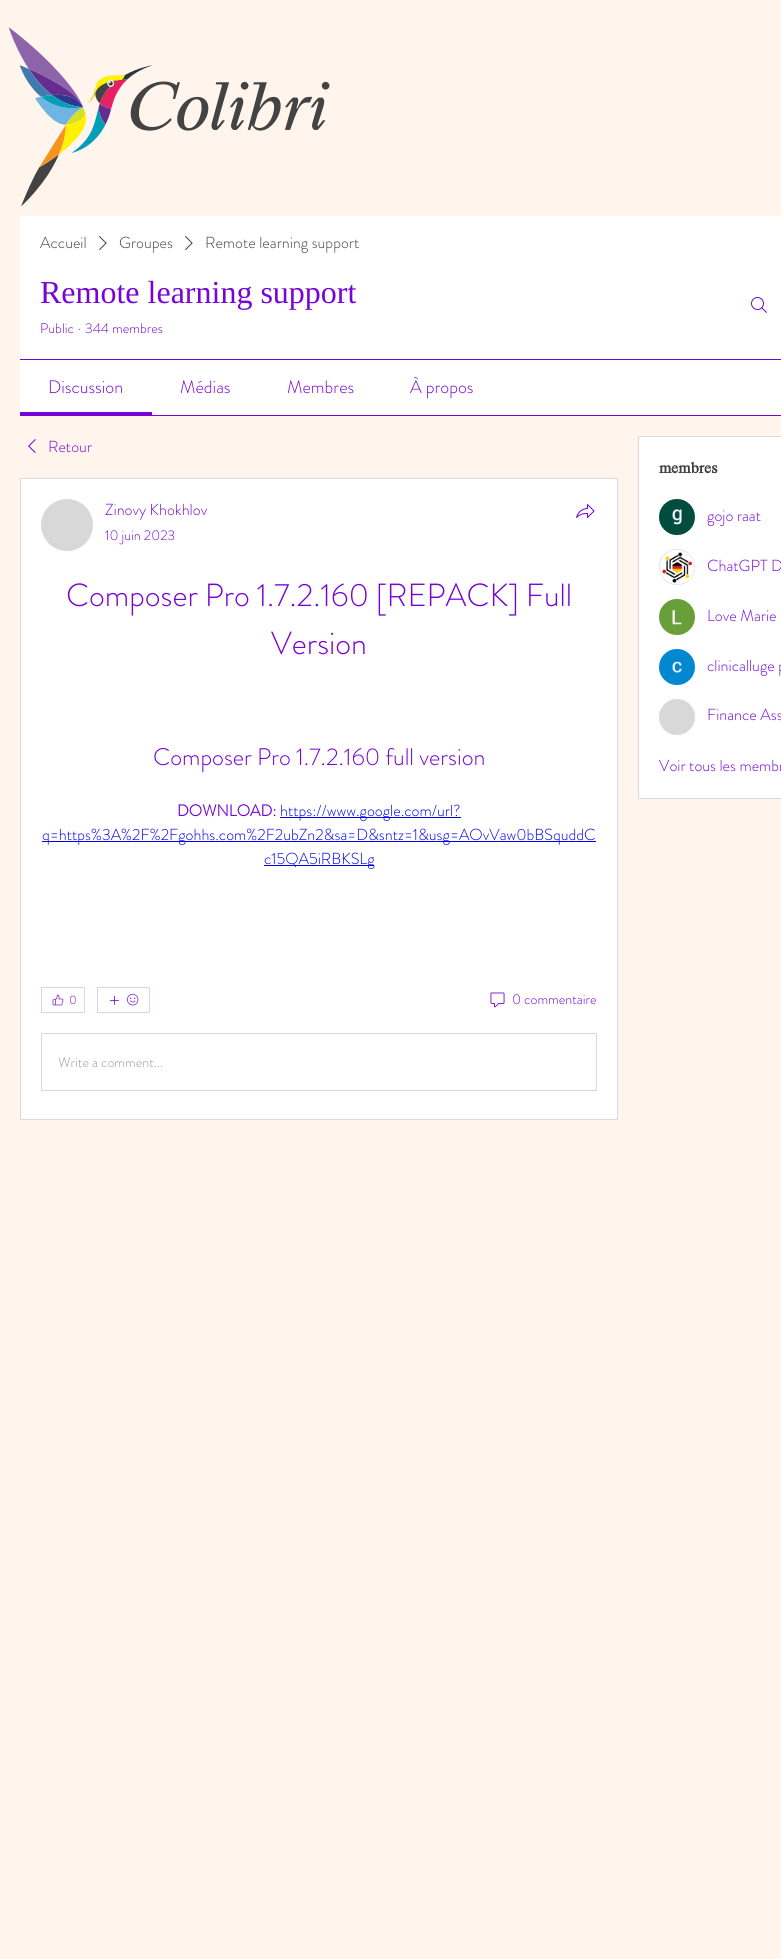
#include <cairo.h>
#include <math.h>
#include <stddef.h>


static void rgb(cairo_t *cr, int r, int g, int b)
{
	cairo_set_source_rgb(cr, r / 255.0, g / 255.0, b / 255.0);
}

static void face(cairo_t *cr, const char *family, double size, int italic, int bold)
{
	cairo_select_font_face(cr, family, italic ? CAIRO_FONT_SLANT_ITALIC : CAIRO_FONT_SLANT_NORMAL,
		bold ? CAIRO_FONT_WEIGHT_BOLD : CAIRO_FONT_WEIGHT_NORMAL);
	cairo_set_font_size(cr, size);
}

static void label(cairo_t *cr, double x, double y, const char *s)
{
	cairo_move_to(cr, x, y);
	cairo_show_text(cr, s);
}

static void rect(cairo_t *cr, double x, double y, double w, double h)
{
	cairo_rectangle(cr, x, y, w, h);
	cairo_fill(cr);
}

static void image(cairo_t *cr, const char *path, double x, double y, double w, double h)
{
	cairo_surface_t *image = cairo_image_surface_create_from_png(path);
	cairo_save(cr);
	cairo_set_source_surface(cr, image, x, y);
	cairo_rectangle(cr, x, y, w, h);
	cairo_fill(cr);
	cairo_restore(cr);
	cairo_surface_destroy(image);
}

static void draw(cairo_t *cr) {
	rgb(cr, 255, 245, 237);
	cairo_paint(cr);
	image(cr, "image0.png", 8, 27, 322, 180);
	rgb(cr, 255, 255, 255);
	rect(cr, 20, 216, 761, 199);
	face(cr, "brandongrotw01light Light", 16, 0, 0);
	rgb(cr, 65, 65, 65);
	label(cr, 40, 248, "Accueil");
	image(cr, "image1.png", 99, 236, 8, 14);
	label(cr, 119, 248, "Groupes");
	image(cr, "image1.png", 185, 236, 8, 14);
	label(cr, 205, 248, "Remote learning support");
	face(cr, "Liberation Serif", 32, 0, 0);
	rgb(cr, 118, 4, 212);
	label(cr, 40, 303, "Remote learning support");
	face(cr, "brandongrotw01light Light", 14, 0, 0);
	label(cr, 40, 333, "Public");
	label(cr, 78, 333, "·");
	label(cr, 85, 333, "344 membres");
	image(cr, "image2.png", 751, 297, 16, 16);
	rect(cr, 20, 359, 761, 1);
	rect(cr, 20, 415, 761, 1);
	rect(cr, 20, 412, 132, 3);
	face(cr, "brandongrotw01light Light", 18, 0, 0);
	label(cr, 48, 393, "Discussion");
	label(cr, 180, 393, "Médias");
	label(cr, 287, 393, "Membres");
	label(cr, 410, 393, "À propos");
	image(cr, "image3.png", 28, 439, 8, 14);
	face(cr, "brandongrotw01light Light", 16, 0, 0);
	label(cr, 48, 452, "Retour");
	rgb(cr, 255, 255, 255);
	cairo_rectangle(cr, 20.5, 478.5, 597, 641);
	cairo_fill_preserve(cr);
	rgb(cr, 217, 217, 217);
	cairo_set_line_width(cr, 1);
	cairo_stroke(cr);
	rgb(cr, 216, 216, 216);
	cairo_arc(cr, 67, 525, 26, 0, 2 * M_PI);
	cairo_fill(cr);
	rgb(cr, 118, 4, 212);
	label(cr, 105, 515, "Zinovy Khokhlov");
	face(cr, "brandongrotw01light Light", 14, 0, 0);
	label(cr, 105, 540, "10 juin 2023");
	image(cr, "image4.png", 576, 504, 19, 14);
	face(cr, "brandongrotw01light Light", 32, 0, 0);
	label(cr, 66, 606, "Composer Pro 1.7.2.160 [REPACK] Full");
	label(cr, 271, 654, "Version");
	face(cr, "brandongrotw01light Light", 24, 0, 0);
	label(cr, 153, 765, "Composer Pro 1.7.2.160 full version");
	face(cr, "brandongrotw01light", 16, 0, 1);
	label(cr, 177, 816, "DOWNLOAD:");
	rgb(cr, 0, 0, 238);
	rect(cr, 280, 817, 181, 1);
	face(cr, "brandongrotw01light Light", 16, 0, 0);
	label(cr, 280, 816, "https://www.google.com/url?");
	rect(cr, 42, 841, 554, 1);
	label(cr, 42, 840, "q=https%3A%2F%2Fgohhs.com%2F2ubZn2&sa=D&sntz=1&usg=AOvVaw0bBSquddC");
	rect(cr, 264, 865, 110, 1);
	label(cr, 264, 864, "c15QA5iRBKSLg");
	cairo_rectangle(cr, 41.5, 987.5, 43, 25);
	rgb(cr, 228, 205, 246);
	cairo_stroke(cr);
	image(cr, "image5.png", 52, 994, 12, 12);
	face(cr, "brandongrotw01light Light", 12, 0, 0);
	rgb(cr, 118, 4, 212);
	label(cr, 69, 1004, "0");
	cairo_rectangle(cr, 97.5, 987.5, 52, 25);
	rgb(cr, 228, 205, 246);
	cairo_stroke(cr);
	image(cr, "image6.png", 110, 996, 9, 9);
	image(cr, "image7.png", 127, 994, 12, 12);
	image(cr, "image8.png", 490, 992, 15, 16);
	face(cr, "brandongrotw01light Light", 14, 0, 0);
	rgb(cr, 118, 4, 212);
	label(cr, 512, 1004, "0 commentaire");
	cairo_rectangle(cr, 41.5, 1033.5, 555, 57);
	rgb(cr, 217, 217, 217);
	cairo_stroke(cr);
	rgb(cr, 153, 153, 151);
	label(cr, 58, 1067, "Write a comment...");
	rgb(cr, 255, 255, 255);
	cairo_rectangle(cr, 638.5, 436.5, 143, 362);
	cairo_fill_preserve(cr);
	rgb(cr, 217, 217, 217);
	cairo_stroke(cr);
	face(cr, "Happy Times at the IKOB", 16, 0, 1);
	rgb(cr, 65, 65, 65);
	label(cr, 659, 473, "membres");
	image(cr, "image9.png", 659, 499, 36, 36);
	face(cr, "brandongrotw01light Light", 16, 0, 0);
	rgb(cr, 118, 4, 212);
	label(cr, 707, 521, "gojo raat");
	rgb(cr, 216, 216, 216);
	cairo_new_path(cr);
	cairo_arc(cr, 677, 567, 18, 0, 2 * M_PI);
	cairo_fill(cr);
	image(cr, "image10.png", 659, 549, 36, 36);
	rgb(cr, 118, 4, 212);
	label(cr, 707, 571, "ChatGPT D");
	image(cr, "image11.png", 659, 599, 36, 36);
	label(cr, 707, 621, "Love Marie");
	image(cr, "image12.png", 659, 649, 36, 36);
	label(cr, 707, 671, "clinicalluge p");
	rgb(cr, 216, 216, 216);
	cairo_new_path(cr);
	cairo_arc(cr, 677, 717, 18, 0, 2 * M_PI);
	cairo_fill(cr);
	rgb(cr, 118, 4, 212);
	label(cr, 707, 720, "Finance Ass");
	label(cr, 659, 771, "Voir tous les membr");
}

int main(void) {
	cairo_surface_t *surface = cairo_image_surface_create(CAIRO_FORMAT_RGB24, 781, 1959);
	cairo_t *cr = cairo_create(surface);
	cairo_font_options_t *options = cairo_font_options_create();
	cairo_font_options_set_hint_metrics(options, CAIRO_HINT_METRICS_OFF);
	cairo_font_options_set_hint_style(options, CAIRO_HINT_STYLE_NONE);
	cairo_set_font_options(cr, options);
	cairo_set_miter_limit(cr, 4);
	draw(cr);
	cairo_surface_write_to_png(surface, "render.png");
	cairo_font_options_destroy(options);
	cairo_destroy(cr);
	cairo_surface_destroy(surface);
	return 0;
}
